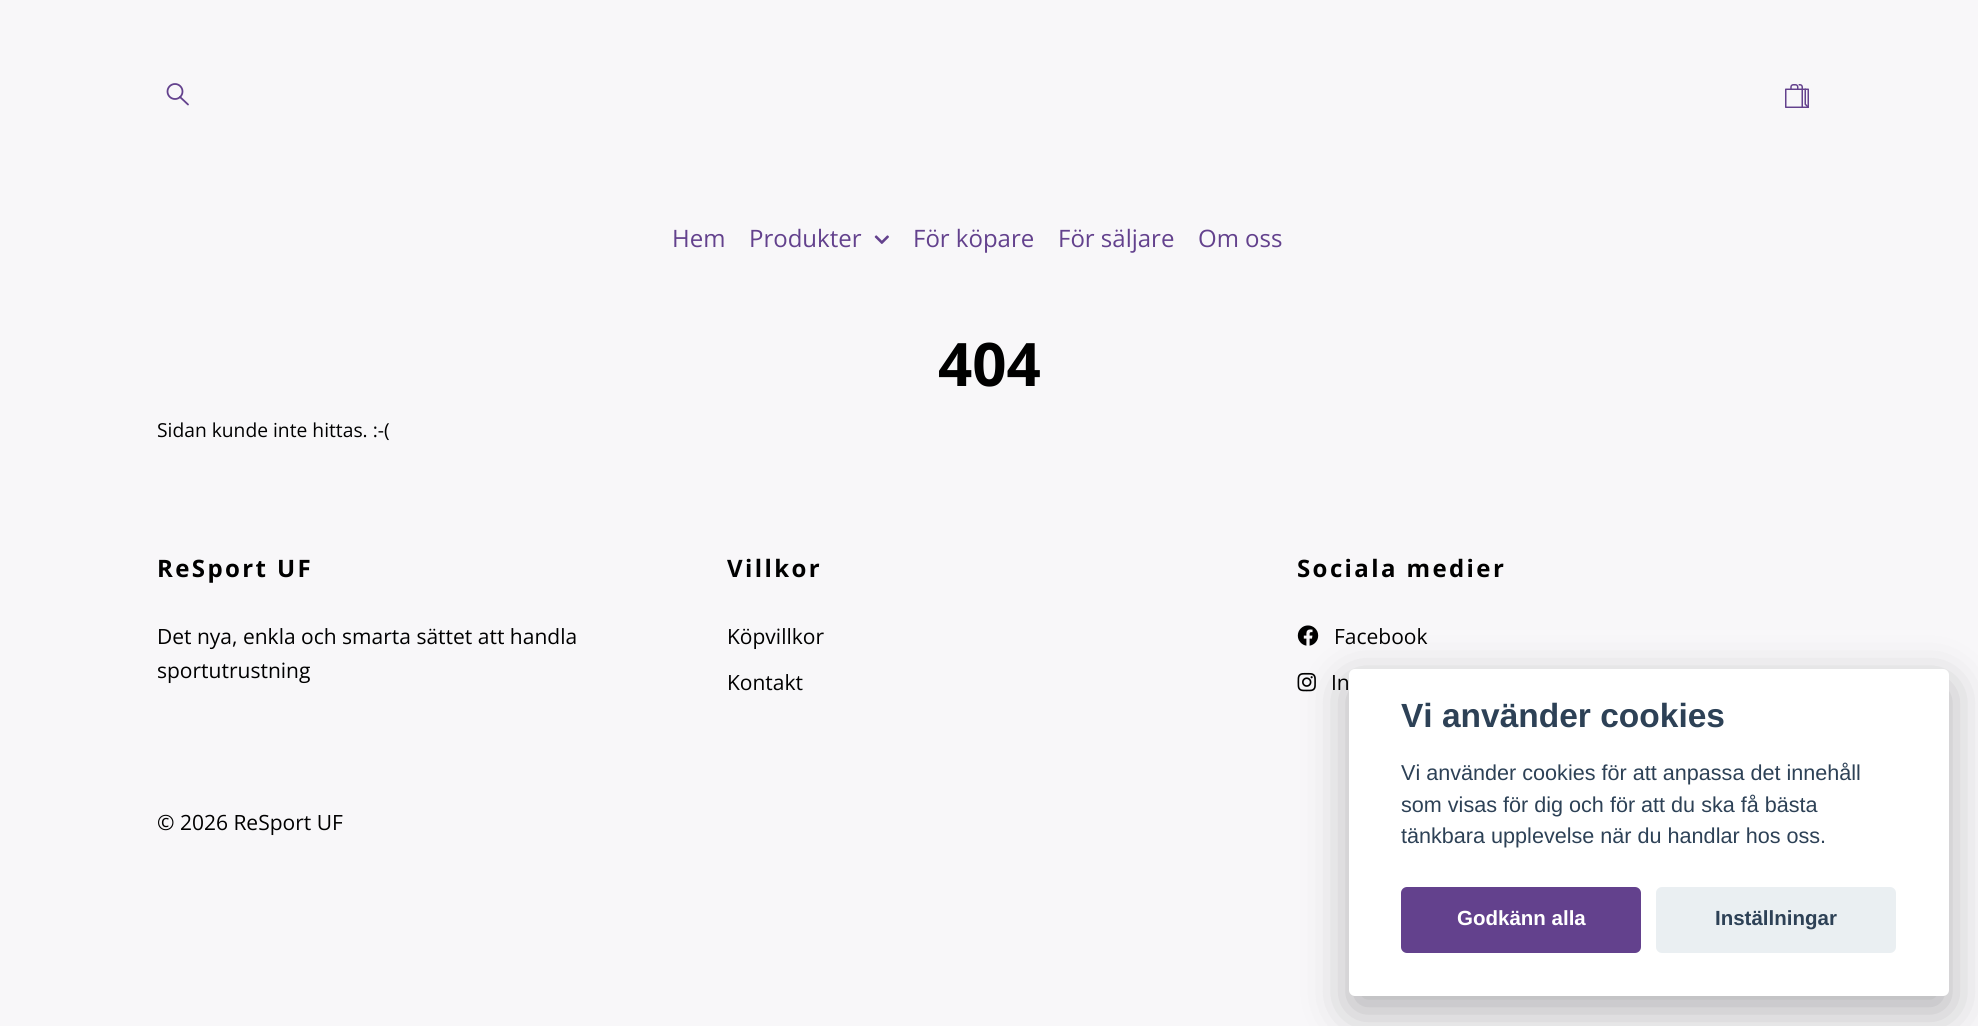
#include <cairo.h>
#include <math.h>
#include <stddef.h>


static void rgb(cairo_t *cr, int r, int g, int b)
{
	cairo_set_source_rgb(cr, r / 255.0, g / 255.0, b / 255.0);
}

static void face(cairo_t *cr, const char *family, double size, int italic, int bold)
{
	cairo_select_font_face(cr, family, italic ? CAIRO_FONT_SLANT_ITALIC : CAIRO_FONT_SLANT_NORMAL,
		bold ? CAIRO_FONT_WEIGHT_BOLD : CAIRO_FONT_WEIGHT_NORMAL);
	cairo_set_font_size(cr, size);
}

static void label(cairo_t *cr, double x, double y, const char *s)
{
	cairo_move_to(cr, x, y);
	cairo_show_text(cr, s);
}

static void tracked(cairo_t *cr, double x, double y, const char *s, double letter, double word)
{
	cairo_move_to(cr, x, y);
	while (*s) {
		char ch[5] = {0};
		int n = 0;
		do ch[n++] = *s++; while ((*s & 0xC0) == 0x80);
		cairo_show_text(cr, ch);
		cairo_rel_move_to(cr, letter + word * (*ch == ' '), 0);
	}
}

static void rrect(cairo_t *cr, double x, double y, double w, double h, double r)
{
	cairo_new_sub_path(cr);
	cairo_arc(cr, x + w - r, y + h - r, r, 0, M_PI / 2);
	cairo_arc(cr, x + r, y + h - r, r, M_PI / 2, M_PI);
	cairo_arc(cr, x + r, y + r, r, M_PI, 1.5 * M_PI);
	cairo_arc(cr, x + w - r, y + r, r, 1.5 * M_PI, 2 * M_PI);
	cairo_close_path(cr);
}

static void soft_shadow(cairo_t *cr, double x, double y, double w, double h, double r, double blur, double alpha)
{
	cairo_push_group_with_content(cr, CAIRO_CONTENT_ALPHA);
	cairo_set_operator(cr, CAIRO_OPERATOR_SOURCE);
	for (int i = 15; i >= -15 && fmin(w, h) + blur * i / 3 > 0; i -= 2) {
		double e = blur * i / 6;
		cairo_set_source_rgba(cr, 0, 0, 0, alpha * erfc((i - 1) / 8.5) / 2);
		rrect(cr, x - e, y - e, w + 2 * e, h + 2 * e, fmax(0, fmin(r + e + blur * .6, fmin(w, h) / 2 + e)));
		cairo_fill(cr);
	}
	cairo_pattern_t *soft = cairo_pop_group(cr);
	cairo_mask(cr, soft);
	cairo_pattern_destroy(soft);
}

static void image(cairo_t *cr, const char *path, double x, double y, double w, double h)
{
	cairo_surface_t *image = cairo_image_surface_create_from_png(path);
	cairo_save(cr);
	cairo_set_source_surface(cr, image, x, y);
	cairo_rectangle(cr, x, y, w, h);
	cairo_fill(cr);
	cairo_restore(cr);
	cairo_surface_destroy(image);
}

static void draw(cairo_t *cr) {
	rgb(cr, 248, 247, 249);
	cairo_paint(cr);
	cairo_new_path(cr);
	cairo_move_to(cr, 180, 97);
	cairo_line_to(cr, 188, 104.5);
	rgb(cr, 99, 65, 141);
	cairo_set_line_width(cr, 1.8);
	cairo_set_line_cap(cr, CAIRO_LINE_CAP_ROUND);
	cairo_set_line_join(cr, CAIRO_LINE_JOIN_ROUND);
	cairo_stroke(cr);
	cairo_arc(cr, 175, 91.5, 7.5, 0, 2 * M_PI);
	cairo_set_line_cap(cr, CAIRO_LINE_CAP_BUTT);
	cairo_set_line_join(cr, CAIRO_LINE_JOIN_MITER);
	cairo_stroke(cr);
	image(cr, "image0.png", 1785, 84, 24, 24);
	face(cr, "Open Sans", 24, 0, 0);
	label(cr, 672, 247, "Hem");
	label(cr, 749, 247, "Produkter");
	image(cr, "image1.png", 874, 235, 15, 9);
	label(cr, 913, 247, "För köpare");
	label(cr, 1058, 247, "För säljare");
	label(cr, 1198, 247, "Om oss");
	face(cr, "Open Sans", 60, 0, 1);
	rgb(cr, 0, 0, 0);
	label(cr, 938, 386, "404");
	face(cr, "Open Sans", 19.25, 0, 0);
	label(cr, 157, 437, "Sidan kunde inte hittas. :-(");
	face(cr, "Open Sans", 24, 0, 1);
	tracked(cr, 157, 577, "ReSport UF", 2.4, 0);
	face(cr, "Open Sans", 21, 0, 0);
	label(cr, 157, 644, "Det nya, enkla och smarta sättet att handla");
	label(cr, 157, 678, "sportutrustning");
	face(cr, "Open Sans", 24, 0, 1);
	tracked(cr, 727, 577, "Villkor", 2.4, 0);
	face(cr, "Open Sans", 21, 0, 0);
	label(cr, 727, 644, "Köpvillkor");
	label(cr, 727, 690, "Kontakt");
	face(cr, "Open Sans", 24, 0, 1);
	tracked(cr, 1297, 577, "Sociala medier", 2.4, 0);
	image(cr, "image2.png", 1297, 625, 22, 21);
	face(cr, "Open Sans", 21, 0, 0);
	label(cr, 1334, 644, "Facebook");
	image(cr, "image3.png", 1297, 672, 19, 20);
	label(cr, 1331, 690, "In");
	label(cr, 157, 830, "© 2026 ReSport UF");
	rgb(cr, 2, 2, 3);
	soft_shadow(cr, 1349, 684, 600, 327, 6, 22.5, 0.28);
	rgb(cr, 255, 255, 255);
	rrect(cr, 1349, 669, 600, 327, 6);
	cairo_fill(cr);
	face(cr, "Liberation Sans", 33.5, 0, 1);
	rgb(cr, 45, 65, 86);
	label(cr, 1401, 727, "Vi använder cookies");
	face(cr, "Liberation Sans", 21.6, 0, 0);
	label(cr, 1401, 780, "Vi använder cookies för att anpassa det innehåll");
	label(cr, 1401, 812, "som visas för dig och för att du ska få bästa");
	label(cr, 1401, 843, "tänkbara upplevelse när du handlar hos oss.");
	rgb(cr, 99, 65, 141);
	rrect(cr, 1401, 887, 240, 66, 6);
	cairo_fill(cr);
	face(cr, "Liberation Sans", 20.5, 0, 1);
	rgb(cr, 255, 255, 255);
	label(cr, 1457, 925, "Godkänn alla");
	rgb(cr, 234, 239, 242);
	rrect(cr, 1656, 887, 240, 66, 6);
	cairo_fill(cr);
	rgb(cr, 45, 65, 86);
	label(cr, 1715, 925, "Inställningar");
}

int main(void) {
	cairo_surface_t *surface = cairo_image_surface_create(CAIRO_FORMAT_RGB24, 1978, 1026);
	cairo_t *cr = cairo_create(surface);
	cairo_font_options_t *options = cairo_font_options_create();
	cairo_font_options_set_hint_metrics(options, CAIRO_HINT_METRICS_OFF);
	cairo_font_options_set_hint_style(options, CAIRO_HINT_STYLE_NONE);
	cairo_set_font_options(cr, options);
	cairo_set_miter_limit(cr, 4);
	draw(cr);
	cairo_surface_write_to_png(surface, "render.png");
	cairo_font_options_destroy(options);
	cairo_destroy(cr);
	cairo_surface_destroy(surface);
	return 0;
}
